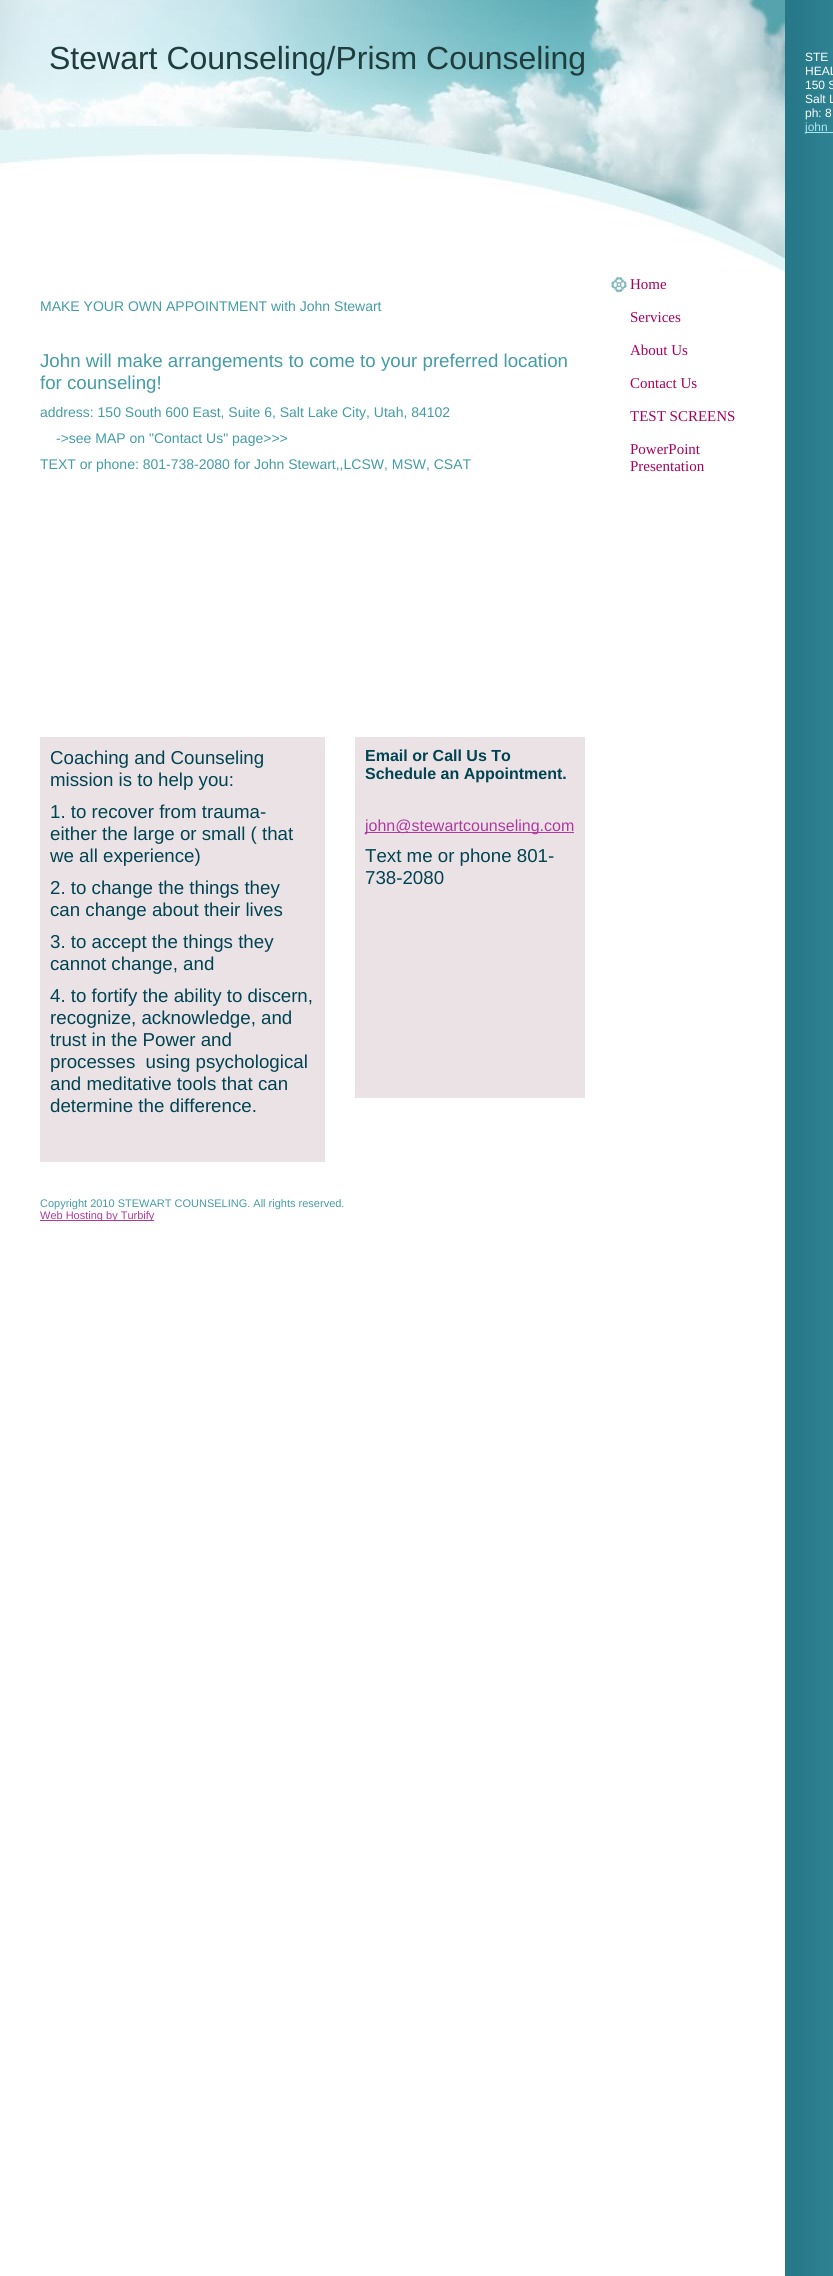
#include <cairo.h>
#include <math.h>
#include <stddef.h>


static void rgb(cairo_t *cr, int r, int g, int b)
{
	cairo_set_source_rgb(cr, r / 255.0, g / 255.0, b / 255.0);
}

static void face(cairo_t *cr, const char *family, double size, int italic, int bold)
{
	cairo_select_font_face(cr, family, italic ? CAIRO_FONT_SLANT_ITALIC : CAIRO_FONT_SLANT_NORMAL,
		bold ? CAIRO_FONT_WEIGHT_BOLD : CAIRO_FONT_WEIGHT_NORMAL);
	cairo_set_font_size(cr, size);
}

static void label(cairo_t *cr, double x, double y, const char *s)
{
	cairo_move_to(cr, x, y);
	cairo_show_text(cr, s);
}

static void rect(cairo_t *cr, double x, double y, double w, double h)
{
	cairo_rectangle(cr, x, y, w, h);
	cairo_fill(cr);
}

static void image(cairo_t *cr, const char *path, double x, double y, double w, double h)
{
	cairo_surface_t *image = cairo_image_surface_create_from_png(path);
	cairo_save(cr);
	cairo_set_source_surface(cr, image, x, y);
	cairo_rectangle(cr, x, y, w, h);
	cairo_fill(cr);
	cairo_restore(cr);
	cairo_surface_destroy(image);
}

static void draw(cairo_t *cr) {
	rgb(cr, 255, 255, 255);
	cairo_paint(cr);
	image(cr, "image0.png", 0, 0, 833, 2276);
	image(cr, "image1.png", 0, 0, 785, 272);
	face(cr, "Liberation Sans", 32, 0, 0);
	rgb(cr, 31, 61, 61);
	label(cr, 49, 69, "Stewart Counseling/Prism Counseling");
	face(cr, "Liberation Sans", 12, 0, 0);
	rgb(cr, 255, 255, 255);
	label(cr, 805, 61, "STE");
	label(cr, 805, 75, "HEAL");
	label(cr, 805, 89, "150 S");
	label(cr, 805, 103, "Salt L");
	label(cr, 805, 117, "ph: 8");
	rgb(cr, 169, 231, 242);
	rect(cr, 805, 132, 28, 1);
	label(cr, 805, 131, "john");
	face(cr, "Liberation Sans", 14, 0, 0);
	rgb(cr, 67, 156, 166);
	label(cr, 40, 311, "MAKE YOUR OWN APPOINTMENT with John Stewart");
	face(cr, "Liberation Sans", 18.7, 0, 0);
	label(cr, 40, 367, "John will make arrangements to come to your preferred location");
	label(cr, 40, 389, "for counseling!");
	face(cr, "Liberation Sans", 14, 0, 0);
	label(cr, 40, 417, "address: 150 South 600 East, Suite 6, Salt Lake City, Utah, 84102");
	label(cr, 56, 443, "->see MAP on \"Contact Us\" page>>>");
	label(cr, 40, 469, "TEXT or phone: 801-738-2080 for John Stewart,,LCSW, MSW, CSAT");
	rgb(cr, 235, 226, 230);
	rect(cr, 40, 737, 285, 425);
	face(cr, "Liberation Sans", 18.7, 0, 0);
	rgb(cr, 0, 67, 81);
	label(cr, 50, 764, "Coaching and Counseling");
	label(cr, 50, 786, "mission is to help you:");
	label(cr, 50, 818, "1. to recover from trauma-");
	label(cr, 50, 840, "either the large or small ( that");
	label(cr, 50, 862, "we all experience)");
	label(cr, 50, 894, "2. to change the things they");
	label(cr, 50, 916, "can change about their lives");
	label(cr, 50, 948, "3. to accept the things they");
	label(cr, 50, 970, "cannot change, and");
	label(cr, 50, 1002, "4. to fortify the ability to discern,");
	label(cr, 50, 1024, "recognize, acknowledge, and");
	label(cr, 50, 1046, "trust in the Power and");
	label(cr, 50, 1068, "processes  using psychological");
	label(cr, 50, 1090, "and meditative tools that can");
	label(cr, 50, 1112, "determine the difference.");
	rgb(cr, 235, 226, 230);
	rect(cr, 355, 737, 230, 361);
	face(cr, "Liberation Sans", 16, 0, 1);
	rgb(cr, 0, 67, 81);
	label(cr, 365, 761, "Email or Call Us To");
	label(cr, 365, 779, "Schedule an Appointment.");
	rgb(cr, 175, 57, 160);
	rect(cr, 365, 832, 209, 1);
	face(cr, "Liberation Sans", 16, 0, 0);
	label(cr, 365, 831, "john@stewartcounseling.com");
	face(cr, "Liberation Sans", 18.7, 0, 0);
	rgb(cr, 0, 67, 81);
	label(cr, 365, 862, "Text me or phone 801-");
	label(cr, 365, 884, "738-2080");
	image(cr, "image2.png", 611, 277, 16, 16);
	face(cr, "Liberation Serif", 15, 0, 0);
	rgb(cr, 167, 1, 91);
	label(cr, 630, 289, "Home");
	label(cr, 630, 322, "Services");
	label(cr, 630, 355, "About Us");
	label(cr, 630, 388, "Contact Us");
	label(cr, 630, 421, "TEST SCREENS");
	label(cr, 630, 454, "PowerPoint");
	label(cr, 630, 471, "Presentation");
	face(cr, "Liberation Sans", 11, 0, 0);
	rgb(cr, 67, 156, 166);
	label(cr, 40, 1207, "Copyright 2010 STEWART COUNSELING. All rights reserved.");
	rgb(cr, 175, 57, 160);
	rect(cr, 40, 1220, 114, 1);
	cairo_save(cr);
	cairo_rectangle(cr, 40, 1197, 545, 24);
	cairo_clip(cr);
	label(cr, 40, 1219, "Web Hosting by Turbify");
	cairo_restore(cr);
}

int main(void) {
	cairo_surface_t *surface = cairo_image_surface_create(CAIRO_FORMAT_RGB24, 833, 2276);
	cairo_t *cr = cairo_create(surface);
	cairo_font_options_t *options = cairo_font_options_create();
	cairo_font_options_set_hint_metrics(options, CAIRO_HINT_METRICS_OFF);
	cairo_font_options_set_hint_style(options, CAIRO_HINT_STYLE_NONE);
	cairo_set_font_options(cr, options);
	cairo_set_miter_limit(cr, 4);
	draw(cr);
	cairo_surface_write_to_png(surface, "render.png");
	cairo_font_options_destroy(options);
	cairo_destroy(cr);
	cairo_surface_destroy(surface);
	return 0;
}
